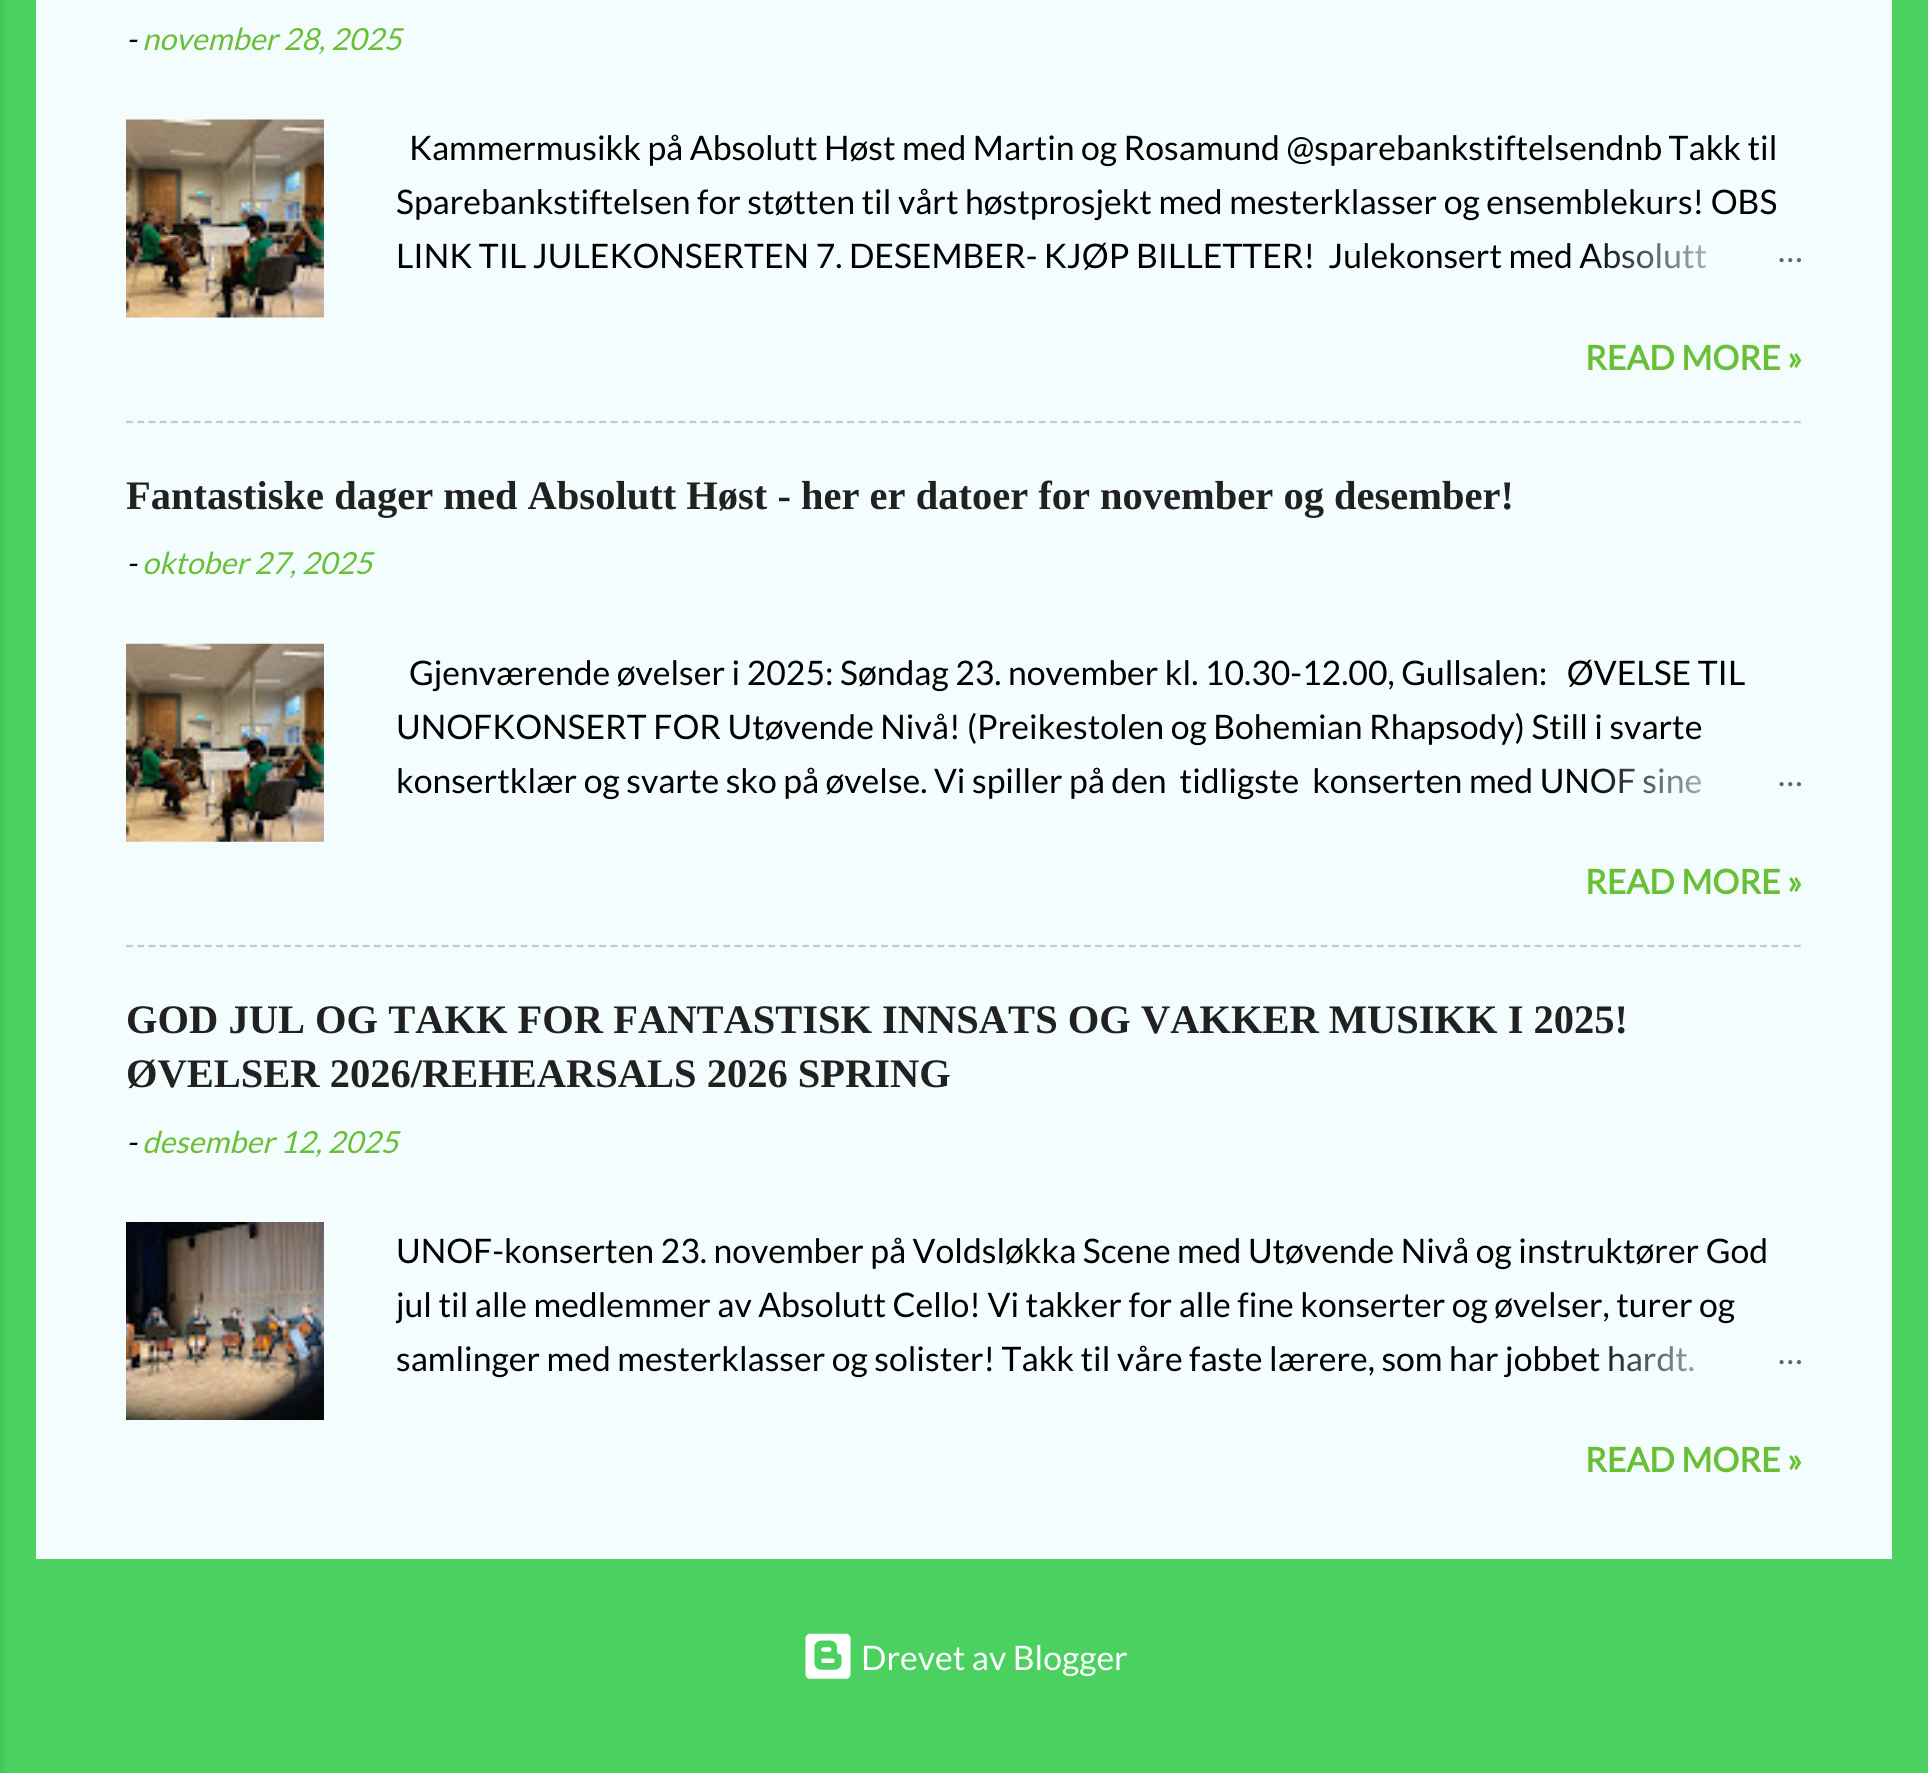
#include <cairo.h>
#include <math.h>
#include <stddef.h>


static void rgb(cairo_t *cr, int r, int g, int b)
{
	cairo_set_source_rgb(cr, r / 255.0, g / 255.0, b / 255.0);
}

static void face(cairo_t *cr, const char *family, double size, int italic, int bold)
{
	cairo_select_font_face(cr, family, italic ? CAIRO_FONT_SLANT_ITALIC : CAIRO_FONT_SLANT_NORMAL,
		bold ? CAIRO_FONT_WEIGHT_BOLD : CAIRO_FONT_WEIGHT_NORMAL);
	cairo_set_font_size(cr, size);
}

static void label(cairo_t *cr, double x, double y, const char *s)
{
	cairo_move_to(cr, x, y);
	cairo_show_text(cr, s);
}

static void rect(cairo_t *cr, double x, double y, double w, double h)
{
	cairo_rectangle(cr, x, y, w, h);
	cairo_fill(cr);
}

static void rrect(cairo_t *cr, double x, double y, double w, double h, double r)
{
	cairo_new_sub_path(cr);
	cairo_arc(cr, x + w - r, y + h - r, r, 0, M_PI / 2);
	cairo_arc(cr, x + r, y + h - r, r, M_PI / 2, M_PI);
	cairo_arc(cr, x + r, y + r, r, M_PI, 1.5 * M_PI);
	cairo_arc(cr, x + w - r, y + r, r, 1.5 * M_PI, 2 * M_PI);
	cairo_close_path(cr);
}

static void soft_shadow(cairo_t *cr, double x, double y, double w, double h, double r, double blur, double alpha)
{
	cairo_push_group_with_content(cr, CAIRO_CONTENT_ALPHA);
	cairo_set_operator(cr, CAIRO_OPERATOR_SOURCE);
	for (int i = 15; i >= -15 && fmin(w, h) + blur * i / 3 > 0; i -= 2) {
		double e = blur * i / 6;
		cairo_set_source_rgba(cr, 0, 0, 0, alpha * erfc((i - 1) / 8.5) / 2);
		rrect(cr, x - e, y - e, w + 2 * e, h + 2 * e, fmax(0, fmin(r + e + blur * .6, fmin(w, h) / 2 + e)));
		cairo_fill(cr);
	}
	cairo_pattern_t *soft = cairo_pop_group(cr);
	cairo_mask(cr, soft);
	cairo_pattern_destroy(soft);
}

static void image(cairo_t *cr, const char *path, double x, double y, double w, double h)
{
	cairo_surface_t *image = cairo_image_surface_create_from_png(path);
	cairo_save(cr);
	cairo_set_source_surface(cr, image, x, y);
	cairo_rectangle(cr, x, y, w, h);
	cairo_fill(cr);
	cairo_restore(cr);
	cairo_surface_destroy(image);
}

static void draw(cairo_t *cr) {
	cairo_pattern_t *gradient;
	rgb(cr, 74, 209, 95);
	cairo_paint(cr);
	rgb(cr, 0, 0, 0);
	soft_shadow(cr, -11, 2, 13, 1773, 0, 3.5, 0.1);
	rgb(cr, 243, 253, 254);
	rect(cr, 36, 0, 1856, 1559);
	face(cr, "Lato", 30.4, 1, 0);
	rgb(cr, 0, 0, 0);
	label(cr, 126, 50, "-");
	rgb(cr, 105, 192, 55);
	label(cr, 142, 50, "november 28, 2025");
	image(cr, "image0.png", 126, 119, 198, 199);
	face(cr, "Lato", 33.75, 0, 0);
	rgb(cr, 0, 0, 0);
	label(cr, 409, 160, "Kammermusikk på Absolutt Høst med Martin og Rosamund @sparebankstiftelsendnb Takk til");
	label(cr, 396, 214, "Sparebankstiftelsen for støtten til vårt høstprosjekt med mesterklasser og ensemblekurs! OBS");
	label(cr, 396, 268, "LINK TIL JULEKONSERTEN 7. DESEMBER- KJØP BILLETTER!  Julekonsert med Absolutt");
	gradient = cairo_pattern_create_linear(1802, 254, 1586, 254);
	cairo_pattern_add_color_stop_rgba(gradient, 0, 0.953, 0.992, 0.996, 1);
	cairo_pattern_add_color_stop_rgba(gradient, 0.2, 0.953, 0.992, 0.996, 1);
	cairo_pattern_add_color_stop_rgba(gradient, 1, 0.953, 0.992, 0.996, 0);
	cairo_set_source(cr, gradient);
	cairo_pattern_destroy(gradient);
	rect(cr, 1590, 243, 117, 26);
	rgb(cr, 101, 101, 101);
	label(cr, 1778, 262, "…");
	face(cr, "Lato", 33.75, 0, 1);
	rgb(cr, 105, 192, 55);
	label(cr, 1585, 370, "READ MORE »");
	cairo_new_path(cr);
	cairo_move_to(cr, 126, 422);
	cairo_line_to(cr, 1802, 422);
	rgb(cr, 199, 199, 199);
	cairo_set_line_width(cr, 2.2);
	cairo_set_dash(cr, (double[]){6.75, 4.52}, 2, 0);
	cairo_stroke(cr);
	face(cr, "Liberation Serif", 40.5, 0, 1);
	rgb(cr, 33, 33, 33);
	label(cr, 126, 509, "Fantastiske dager med Absolutt Høst - her er datoer for november og desember!");
	face(cr, "Lato", 30.4, 1, 0);
	rgb(cr, 0, 0, 0);
	label(cr, 126, 574, "-");
	rgb(cr, 105, 192, 55);
	label(cr, 142, 574, "oktober 27, 2025");
	image(cr, "image1.png", 126, 643, 198, 199);
	face(cr, "Lato", 33.75, 0, 0);
	rgb(cr, 0, 0, 0);
	label(cr, 409, 685, "Gjenværende øvelser i 2025: Søndag 23. november kl. 10.30-12.00, Gullsalen:   ØVELSE TIL");
	label(cr, 396, 739, "UNOFKONSERT FOR Utøvende Nivå! (Preikestolen og Bohemian Rhapsody) Still i svarte");
	label(cr, 396, 793, "konsertklær og svarte sko på øvelse. Vi spiller på den  tidligste  konserten med UNOF sine");
	gradient = cairo_pattern_create_linear(1802, 779, 1586, 779);
	cairo_pattern_add_color_stop_rgba(gradient, 0, 0.953, 0.992, 0.996, 1);
	cairo_pattern_add_color_stop_rgba(gradient, 0.2, 0.953, 0.992, 0.996, 1);
	cairo_pattern_add_color_stop_rgba(gradient, 1, 0.953, 0.992, 0.996, 0);
	cairo_set_source(cr, gradient);
	cairo_pattern_destroy(gradient);
	rect(cr, 1591, 768, 110, 26);
	rgb(cr, 101, 101, 101);
	label(cr, 1778, 786, "…");
	face(cr, "Lato", 33.75, 0, 1);
	rgb(cr, 105, 192, 55);
	label(cr, 1585, 894, "READ MORE »");
	cairo_new_path(cr);
	cairo_move_to(cr, 126, 946);
	cairo_line_to(cr, 1802, 946);
	rgb(cr, 199, 199, 199);
	cairo_stroke(cr);
	face(cr, "Liberation Serif", 40.5, 0, 1);
	rgb(cr, 33, 33, 33);
	label(cr, 126, 1033, "GOD JUL OG TAKK FOR FANTASTISK INNSATS OG VAKKER MUSIKK I 2025!");
	label(cr, 126, 1087, "ØVELSER 2026/REHEARSALS 2026 SPRING");
	face(cr, "Lato", 30.4, 1, 0);
	rgb(cr, 0, 0, 0);
	label(cr, 126, 1153, "-");
	rgb(cr, 105, 192, 55);
	label(cr, 142, 1153, "desember 12, 2025");
	image(cr, "image2.png", 126, 1222, 198, 198);
	face(cr, "Lato", 33.75, 0, 0);
	rgb(cr, 0, 0, 0);
	label(cr, 396, 1263, "UNOF-konserten 23. november på Voldsløkka Scene med Utøvende Nivå og instruktører God");
	cairo_save(cr);
	cairo_rectangle(cr, 396, 1222, 1406, 162);
	cairo_clip(cr);
	label(cr, 396, 1317, "jul til alle medlemmer av Absolutt Cello! Vi takker for alle fine konserter og øvelser, turer og");
	cairo_restore(cr);
	label(cr, 396, 1371, "samlinger med mesterklasser og solister! Takk til våre faste lærere, som har jobbet hardt.");
	gradient = cairo_pattern_create_linear(1802, 1357, 1586, 1357);
	cairo_pattern_add_color_stop_rgba(gradient, 0, 0.953, 0.992, 0.996, 1);
	cairo_pattern_add_color_stop_rgba(gradient, 0.2, 0.953, 0.992, 0.996, 1);
	cairo_pattern_add_color_stop_rgba(gradient, 1, 0.953, 0.992, 0.996, 0);
	cairo_set_source(cr, gradient);
	cairo_pattern_destroy(gradient);
	rect(cr, 1590, 1346, 104, 26);
	rgb(cr, 101, 101, 101);
	label(cr, 1778, 1364, "…");
	face(cr, "Lato", 33.75, 0, 1);
	rgb(cr, 105, 192, 55);
	label(cr, 1585, 1472, "READ MORE »");
	image(cr, "image3.png", 805, 1633, 46, 46);
	face(cr, "Lato", 33.75, 0, 0);
	rgb(cr, 255, 255, 255);
	label(cr, 861, 1670, "Drevet av Blogger");
}

int main(void) {
	cairo_surface_t *surface = cairo_image_surface_create(CAIRO_FORMAT_RGB24, 1928, 1773);
	cairo_t *cr = cairo_create(surface);
	cairo_font_options_t *options = cairo_font_options_create();
	cairo_font_options_set_hint_metrics(options, CAIRO_HINT_METRICS_OFF);
	cairo_font_options_set_hint_style(options, CAIRO_HINT_STYLE_NONE);
	cairo_set_font_options(cr, options);
	cairo_set_miter_limit(cr, 4);
	draw(cr);
	cairo_surface_write_to_png(surface, "render.png");
	cairo_font_options_destroy(options);
	cairo_destroy(cr);
	cairo_surface_destroy(surface);
	return 0;
}
